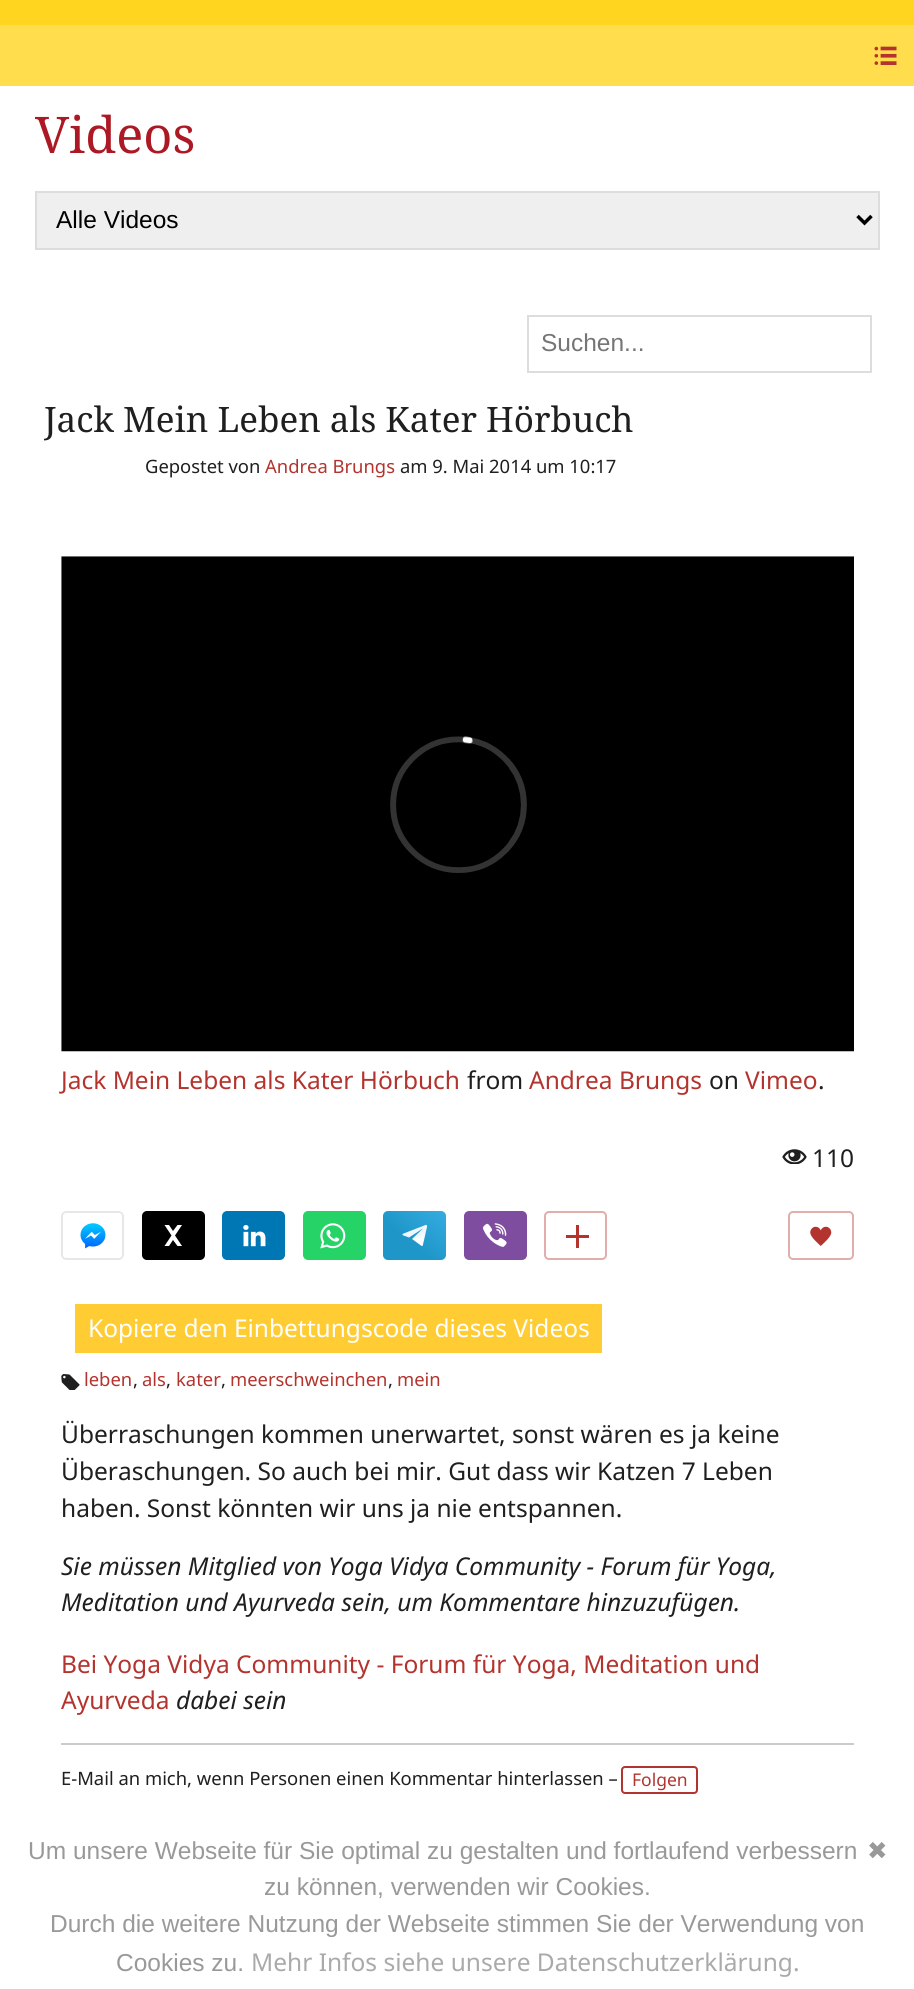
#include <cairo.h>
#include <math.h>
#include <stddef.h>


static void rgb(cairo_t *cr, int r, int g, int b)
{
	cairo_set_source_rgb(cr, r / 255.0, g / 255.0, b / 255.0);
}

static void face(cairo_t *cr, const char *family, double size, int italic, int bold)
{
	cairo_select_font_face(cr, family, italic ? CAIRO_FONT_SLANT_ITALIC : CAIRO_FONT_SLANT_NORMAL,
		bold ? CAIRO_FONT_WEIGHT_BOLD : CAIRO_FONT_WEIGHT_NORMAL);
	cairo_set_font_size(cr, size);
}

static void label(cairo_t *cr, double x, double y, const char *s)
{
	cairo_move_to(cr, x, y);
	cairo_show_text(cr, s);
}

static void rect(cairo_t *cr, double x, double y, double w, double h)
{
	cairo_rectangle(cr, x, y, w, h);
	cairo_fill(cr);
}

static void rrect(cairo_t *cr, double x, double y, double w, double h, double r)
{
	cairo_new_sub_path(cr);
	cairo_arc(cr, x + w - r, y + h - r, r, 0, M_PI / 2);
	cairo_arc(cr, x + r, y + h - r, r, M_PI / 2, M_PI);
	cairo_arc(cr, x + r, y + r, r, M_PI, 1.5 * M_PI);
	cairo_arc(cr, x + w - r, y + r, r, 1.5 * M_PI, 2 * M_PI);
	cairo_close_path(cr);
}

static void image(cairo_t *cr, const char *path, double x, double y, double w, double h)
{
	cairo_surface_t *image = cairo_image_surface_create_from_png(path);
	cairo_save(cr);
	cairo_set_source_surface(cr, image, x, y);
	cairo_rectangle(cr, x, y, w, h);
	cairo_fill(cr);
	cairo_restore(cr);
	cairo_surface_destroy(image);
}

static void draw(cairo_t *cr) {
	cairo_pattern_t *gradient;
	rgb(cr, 255, 213, 32);
	cairo_paint(cr);
	rgb(cr, 255, 221, 77);
	rect(cr, 0, 25, 914, 61);
	image(cr, "image0.png", 874, 46, 23, 19);
	rgb(cr, 255, 255, 255);
	rect(cr, 0, 86, 914, 1903);
	face(cr, "Noto Serif", 50.5, 0, 0);
	rgb(cr, 172, 25, 36);
	label(cr, 35, 153, "Videos");
	rgb(cr, 239, 239, 239);
	cairo_rectangle(cr, 36, 192, 843, 57);
	cairo_fill_preserve(cr);
	rgb(cr, 221, 221, 221);
	cairo_stroke(cr);
	cairo_new_path(cr);
	cairo_move_to(cr, 857.5, 216);
	cairo_line_to(cr, 864.5, 223);
	cairo_line_to(cr, 871.5, 216);
	rgb(cr, 0, 0, 0);
	cairo_set_line_width(cr, 3.5);
	cairo_stroke(cr);
	face(cr, "Liberation Sans", 24.5, 0, 0);
	label(cr, 56, 228, "Alle Videos");
	cairo_rectangle(cr, 528, 316, 343, 56);
	rgb(cr, 221, 221, 221);
	cairo_set_line_width(cr, 2);
	cairo_stroke(cr);
	rgb(cr, 117, 117, 117);
	label(cr, 541, 351, "Suchen...");
	cairo_save(cr);
	cairo_rectangle(cr, 44, 397, 828, 139);
	cairo_clip(cr);
	face(cr, "Noto Serif", 35, 0, 0);
	rgb(cr, 31, 31, 31);
	label(cr, 44, 432, "Jack Mein Leben als Kater");
	cairo_restore(cr);
	face(cr, "Noto Serif", 35, 0, 0);
	rgb(cr, 31, 31, 31);
	label(cr, 486, 432, "Hörbuch");
	face(cr, "Noto Sans", 18.4, 0, 0);
	label(cr, 145, 473, "Gepostet von");
	rgb(cr, 179, 52, 46);
	label(cr, 265, 473, "Andrea Brungs");
	rgb(cr, 31, 31, 31);
	label(cr, 400, 473, "am 9. Mai 2014 um 10:17");
	image(cr, "image1.png", 61, 556, 793, 496);
	face(cr, "Noto Sans", 24.5, 0, 0);
	rgb(cr, 179, 52, 46);
	label(cr, 61, 1089, "Jack Mein Leben als Kater Hörbuch");
	rgb(cr, 31, 31, 31);
	label(cr, 467, 1089, "from");
	rgb(cr, 179, 52, 46);
	label(cr, 529, 1089, "Andrea Brungs");
	rgb(cr, 31, 31, 31);
	label(cr, 709, 1089, "on");
	rgb(cr, 179, 52, 46);
	label(cr, 745, 1089, "Vimeo");
	rgb(cr, 31, 31, 31);
	label(cr, 818, 1089, ".");
	image(cr, "image2.png", 782, 1149, 25, 15);
	label(cr, 812, 1167, "110");
	image(cr, "image3.png", 61, 1211, 63, 49);
	rgb(cr, 0, 0, 0);
	rrect(cr, 142, 1211, 63, 49, 5);
	cairo_fill(cr);
	rgb(cr, 255, 255, 255);
	cairo_set_fill_rule(cr, CAIRO_FILL_RULE_EVEN_ODD);
	cairo_new_path(cr);
	cairo_move_to(cr, 164.5, 1225);
	cairo_line_to(cr, 171.5, 1235.5);
	cairo_line_to(cr, 164.5, 1246);
	cairo_line_to(cr, 169, 1246);
	cairo_line_to(cr, 173, 1240);
	cairo_line_to(cr, 177.5, 1246);
	cairo_line_to(cr, 182, 1246);
	cairo_line_to(cr, 175, 1235.5);
	cairo_line_to(cr, 182, 1225);
	cairo_line_to(cr, 177.5, 1225);
	cairo_line_to(cr, 173, 1231);
	cairo_line_to(cr, 169, 1225);
	cairo_close_path(cr);
	cairo_fill(cr);
	image(cr, "image4.png", 222, 1211, 63, 49);
	image(cr, "image5.png", 303, 1211, 63, 49);
	gradient = cairo_pattern_create_linear(452, 1212, 420, 1251);
	cairo_pattern_add_color_stop_rgba(gradient, 0, 0.216, 0.682, 0.886, 1);
	cairo_pattern_add_color_stop_rgba(gradient, 1, 0.118, 0.588, 0.784, 1);
	cairo_set_source(cr, gradient);
	cairo_pattern_destroy(gradient);
	rrect(cr, 383, 1211, 63, 49, 5);
	cairo_fill(cr);
	gradient = cairo_pattern_create_linear(418, 1235, 420, 1240);
	cairo_pattern_add_color_stop_rgba(gradient, 0, 0.937, 0.969, 0.988, 1);
	cairo_pattern_add_color_stop_rgba(gradient, 1, 1, 1, 1, 1);
	cairo_set_source(cr, gradient);
	cairo_pattern_destroy(gradient);
	cairo_set_fill_rule(cr, CAIRO_FILL_RULE_WINDING);
	cairo_new_path(cr);
	cairo_move_to(cr, 412, 1239);
	cairo_line_to(cr, 421, 1245.5);
	cairo_curve_to(cr, 422, 1246.5, 423, 1246, 423, 1244.5);
	cairo_line_to(cr, 427, 1227);
	cairo_curve_to(cr, 427.5, 1225.5, 426.5, 1224.5, 425.5, 1225);
	cairo_line_to(cr, 403.5, 1233.5);
	cairo_curve_to(cr, 402, 1234.5, 402, 1235, 403.5, 1235.5);
	cairo_line_to(cr, 409, 1237.5);
	cairo_line_to(cr, 422, 1229);
	cairo_curve_to(cr, 422.5, 1228.5, 423, 1229, 422.5, 1229);
	cairo_fill(cr);
	image(cr, "image6.png", 464, 1211, 63, 49);
	rrect(cr, 545, 1212, 61, 47, 4);
	rgb(cr, 225, 174, 171);
	cairo_stroke(cr);
	rgb(cr, 179, 52, 46);
	rect(cr, 576, 1225, 3, 23);
	rect(cr, 566, 1235, 23, 3);
	rrect(cr, 789, 1212, 64, 47, 4);
	rgb(cr, 225, 174, 171);
	cairo_stroke(cr);
	image(cr, "image7.png", 810, 1226, 22, 20);
	rgb(cr, 255, 204, 51);
	rect(cr, 75, 1304, 527, 49);
	rgb(cr, 255, 255, 255);
	label(cr, 88, 1337, "Kopiere den Einbettungscode dieses Videos");
	image(cr, "image8.png", 61, 1374, 19, 16);
	face(cr, "Noto Sans", 18.4, 0, 0);
	rgb(cr, 179, 52, 46);
	label(cr, 84, 1386, "leben");
	rgb(cr, 31, 31, 31);
	label(cr, 133, 1386, ",");
	rgb(cr, 179, 52, 46);
	label(cr, 142, 1386, "als");
	rgb(cr, 31, 31, 31);
	label(cr, 166, 1386, ",");
	rgb(cr, 179, 52, 46);
	label(cr, 176, 1386, "kater");
	rgb(cr, 31, 31, 31);
	label(cr, 221, 1386, ",");
	rgb(cr, 179, 52, 46);
	label(cr, 230, 1386, "meerschweinchen");
	rgb(cr, 31, 31, 31);
	label(cr, 388, 1386, ",");
	rgb(cr, 179, 52, 46);
	label(cr, 397, 1386, "mein");
	face(cr, "Noto Sans", 24.5, 0, 0);
	rgb(cr, 31, 31, 31);
	label(cr, 61, 1443, "Überraschungen kommen unerwartet, sonst wären es ja keine");
	label(cr, 61, 1480, "Überaschungen. So auch bei mir. Gut dass wir Katzen 7 Leben");
	label(cr, 61, 1517, "haben. Sonst könnten wir uns ja nie entspannen.");
	face(cr, "Noto Sans", 24.5, 1, 0);
	label(cr, 61, 1575, "Sie müssen Mitglied von Yoga Vidya Community - Forum für Yoga,");
	label(cr, 61, 1611, "Meditation und Ayurveda sein, um Kommentare hinzuzufügen.");
	face(cr, "Noto Sans", 24.5, 0, 0);
	rgb(cr, 179, 52, 46);
	label(cr, 61, 1673, "Bei Yoga Vidya Community - Forum für Yoga, Meditation und");
	label(cr, 61, 1709, "Ayurveda");
	face(cr, "Noto Sans", 24.5, 1, 0);
	rgb(cr, 31, 31, 31);
	label(cr, 176, 1709, "dabei sein");
	rgb(cr, 204, 204, 204);
	rect(cr, 61, 1743, 793, 2);
	face(cr, "Noto Sans", 18.4, 0, 0);
	rgb(cr, 31, 31, 31);
	label(cr, 61, 1785, "E-Mail an mich, wenn Personen einen Kommentar hinterlassen –");
	rrect(cr, 622, 1767, 75, 26, 3);
	rgb(cr, 179, 52, 46);
	cairo_stroke(cr);
	face(cr, "Noto Sans", 17.5, 0, 0);
	label(cr, 632, 1786, "Folgen");
	face(cr, "Liberation Sans", 24.5, 0, 0);
	rgb(cr, 153, 153, 153);
	label(cr, 28, 1859, "Um unsere Webseite für Sie optimal zu gestalten und fortlaufend verbessern");
	face(cr, "DejaVu Sans", 24.5, 0, 0);
	label(cr, 867, 1859, "✖");
	face(cr, "Liberation Sans", 24.5, 0, 0);
	label(cr, 264, 1895, "zu können, verwenden wir Cookies.");
	label(cr, 50, 1932, "Durch die weitere Nutzung der Webseite stimmen Sie der Verwendung von");
	label(cr, 116, 1971, "Cookies zu.");
	face(cr, "Noto Sans", 24.5, 0, 0);
	rgb(cr, 170, 170, 170);
	label(cr, 251, 1971, "Mehr Infos siehe unsere Datenschutzerklärung.");
}

int main(void) {
	cairo_surface_t *surface = cairo_image_surface_create(CAIRO_FORMAT_RGB24, 914, 1989);
	cairo_t *cr = cairo_create(surface);
	cairo_font_options_t *options = cairo_font_options_create();
	cairo_font_options_set_hint_metrics(options, CAIRO_HINT_METRICS_OFF);
	cairo_font_options_set_hint_style(options, CAIRO_HINT_STYLE_NONE);
	cairo_set_font_options(cr, options);
	cairo_set_miter_limit(cr, 4);
	draw(cr);
	cairo_surface_write_to_png(surface, "render.png");
	cairo_font_options_destroy(options);
	cairo_destroy(cr);
	cairo_surface_destroy(surface);
	return 0;
}
